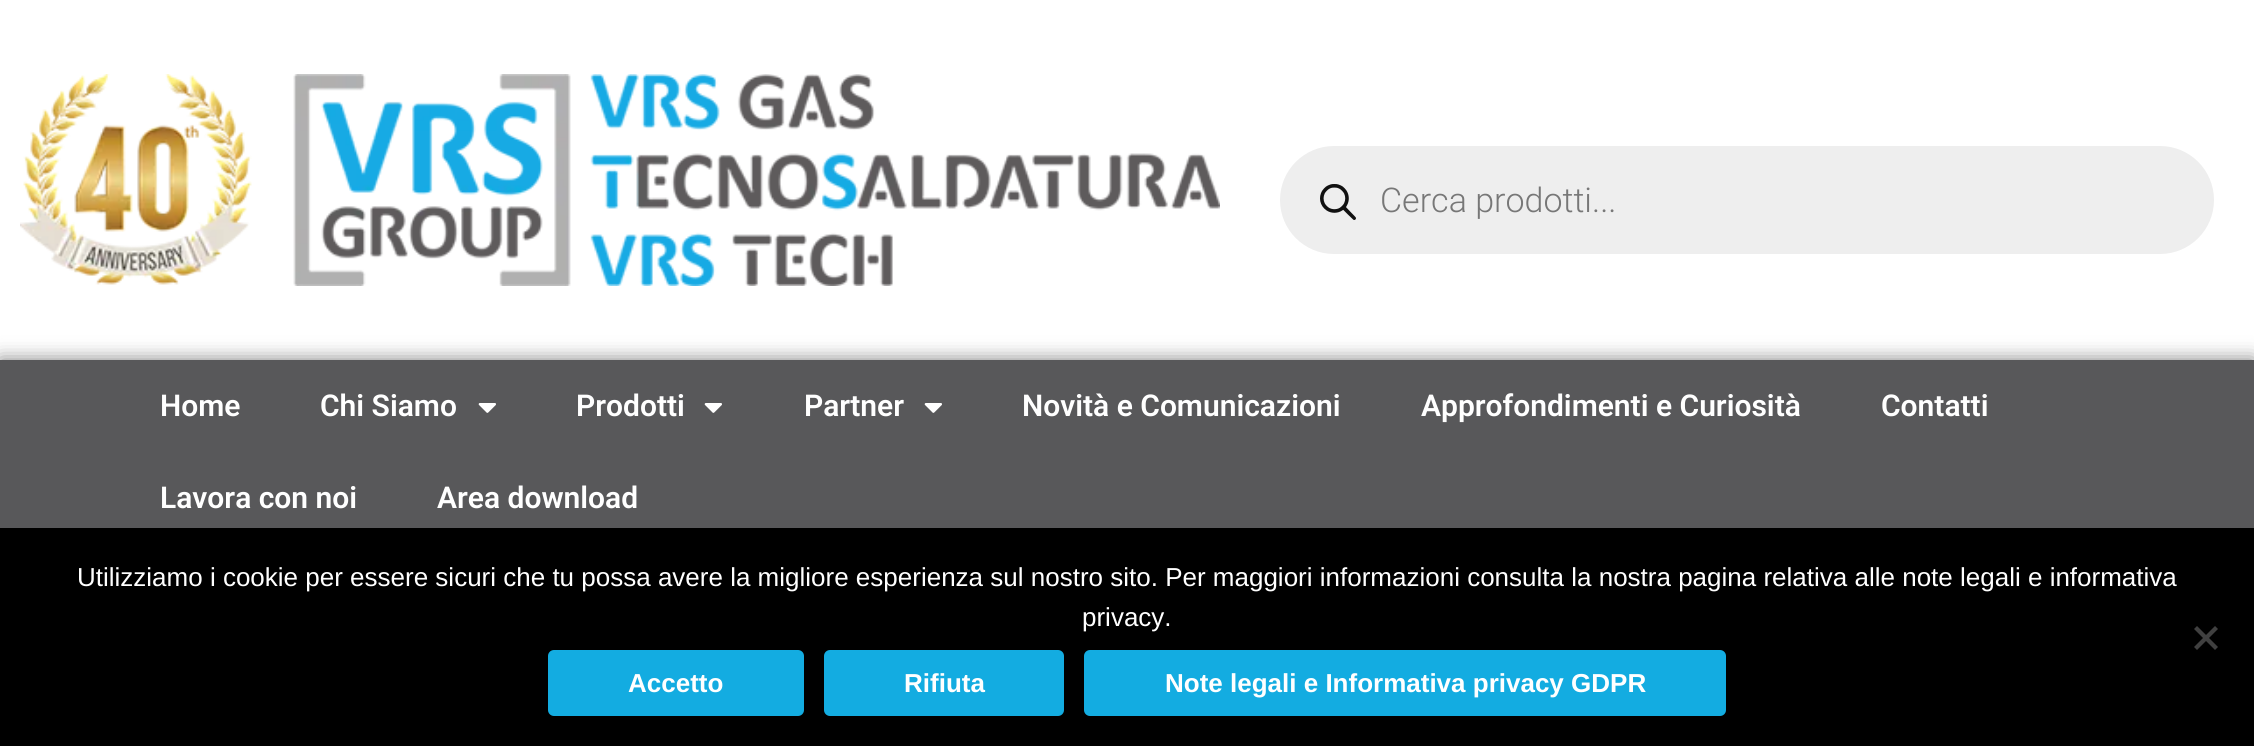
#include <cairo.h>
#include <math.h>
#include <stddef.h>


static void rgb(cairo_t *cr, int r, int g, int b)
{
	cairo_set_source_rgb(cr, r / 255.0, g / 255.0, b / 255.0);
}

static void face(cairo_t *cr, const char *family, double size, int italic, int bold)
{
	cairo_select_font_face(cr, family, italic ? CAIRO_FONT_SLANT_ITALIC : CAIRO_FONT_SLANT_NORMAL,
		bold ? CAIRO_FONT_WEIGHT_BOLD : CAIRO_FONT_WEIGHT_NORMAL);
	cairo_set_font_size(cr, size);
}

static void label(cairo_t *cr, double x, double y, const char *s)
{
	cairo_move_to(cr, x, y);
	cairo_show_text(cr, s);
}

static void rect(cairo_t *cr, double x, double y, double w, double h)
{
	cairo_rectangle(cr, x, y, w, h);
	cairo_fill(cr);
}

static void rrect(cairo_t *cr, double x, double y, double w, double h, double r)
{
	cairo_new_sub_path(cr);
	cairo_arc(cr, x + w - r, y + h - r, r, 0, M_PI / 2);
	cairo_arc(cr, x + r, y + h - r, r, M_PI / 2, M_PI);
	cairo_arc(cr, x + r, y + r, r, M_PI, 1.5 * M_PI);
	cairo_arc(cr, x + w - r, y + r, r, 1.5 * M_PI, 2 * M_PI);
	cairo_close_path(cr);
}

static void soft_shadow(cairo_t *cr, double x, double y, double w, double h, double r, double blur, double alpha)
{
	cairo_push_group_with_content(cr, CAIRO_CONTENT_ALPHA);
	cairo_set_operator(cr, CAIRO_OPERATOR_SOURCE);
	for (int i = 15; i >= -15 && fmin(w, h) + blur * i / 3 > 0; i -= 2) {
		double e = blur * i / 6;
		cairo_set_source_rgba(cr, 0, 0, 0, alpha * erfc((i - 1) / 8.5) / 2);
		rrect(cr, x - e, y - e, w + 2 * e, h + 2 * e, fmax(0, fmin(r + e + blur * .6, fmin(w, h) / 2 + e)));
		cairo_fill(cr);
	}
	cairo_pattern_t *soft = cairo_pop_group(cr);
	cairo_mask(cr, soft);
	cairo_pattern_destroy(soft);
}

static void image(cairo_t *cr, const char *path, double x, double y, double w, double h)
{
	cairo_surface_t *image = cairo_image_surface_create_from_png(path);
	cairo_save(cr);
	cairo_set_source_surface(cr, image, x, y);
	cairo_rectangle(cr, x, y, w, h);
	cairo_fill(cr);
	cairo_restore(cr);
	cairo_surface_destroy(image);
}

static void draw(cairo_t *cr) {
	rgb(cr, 255, 255, 255);
	cairo_paint(cr);
	image(cr, "image0.png", 20, 74, 1200, 212);
	rgb(cr, 238, 238, 238);
	rrect(cr, 1280, 146, 934, 108, 54);
	cairo_fill(cr);
	image(cr, "image1.png", 1320, 184, 36, 36);
	face(cr, "Roboto Light", 34, 0, 0);
	rgb(cr, 119, 119, 119);
	label(cr, 1380, 212, "Cerca prodotti...");
	rgb(cr, 0, 0, 0);
	soft_shadow(cr, 0, 360, 2254, 184, 0, 10, 0.5);
	rgb(cr, 88, 88, 90);
	rect(cr, 0, 360, 2254, 168);
	face(cr, "Roboto SemiBold", 30, 0, 0);
	rgb(cr, 255, 255, 255);
	label(cr, 160, 416, "Home");
	label(cr, 320, 416, "Chi Siamo");
	image(cr, "image2.png", 478, 403, 18, 10);
	label(cr, 576, 416, "Prodotti");
	image(cr, "image2.png", 704, 403, 18, 10);
	label(cr, 804, 416, "Partner");
	image(cr, "image2.png", 924, 403, 18, 10);
	label(cr, 1022, 416, "Novità e Comunicazioni");
	label(cr, 1421, 416, "Approfondimenti e Curiosità");
	label(cr, 1881, 416, "Contatti");
	label(cr, 160, 508, "Lavora con noi");
	label(cr, 437, 508, "Area download");
	rgb(cr, 0, 0, 0);
	rect(cr, 0, 528, 2254, 218);
	face(cr, "Liberation Sans", 26, 0, 0);
	rgb(cr, 255, 255, 255);
	label(cr, 77, 586, "Utilizziamo i cookie per essere sicuri che tu possa avere la migliore esperienza sul nostro sito. Per maggiori informazioni consulta la nostra pagina relativa alle note legali e informativa");
	label(cr, 1082, 626, "privacy.");
	rgb(cr, 64, 64, 64);
	cairo_new_path(cr);
	cairo_move_to(cr, 2215, 626);
	cairo_line_to(cr, 2218, 629);
	cairo_line_to(cr, 2197, 650);
	cairo_line_to(cr, 2194, 647);
	cairo_close_path(cr);
	cairo_fill(cr);
	cairo_new_path(cr);
	cairo_move_to(cr, 2194, 629);
	cairo_line_to(cr, 2197, 626);
	cairo_line_to(cr, 2218, 647);
	cairo_line_to(cr, 2215, 650);
	cairo_close_path(cr);
	cairo_fill(cr);
	rgb(cr, 19, 172, 225);
	rrect(cr, 548, 650, 256, 66, 6);
	cairo_fill(cr);
	face(cr, "Liberation Sans", 26, 0, 1);
	rgb(cr, 255, 255, 255);
	label(cr, 628, 692, "Accetto");
	rgb(cr, 19, 172, 225);
	rrect(cr, 824, 650, 240, 66, 6);
	cairo_fill(cr);
	rgb(cr, 255, 255, 255);
	label(cr, 904, 692, "Rifiuta");
	rgb(cr, 19, 172, 225);
	rrect(cr, 1084, 650, 642, 66, 6);
	cairo_fill(cr);
	rgb(cr, 255, 255, 255);
	label(cr, 1165, 692, "Note legali e Informativa privacy GDPR");
}

int main(void) {
	cairo_surface_t *surface = cairo_image_surface_create(CAIRO_FORMAT_RGB24, 2254, 746);
	cairo_t *cr = cairo_create(surface);
	cairo_font_options_t *options = cairo_font_options_create();
	cairo_font_options_set_hint_metrics(options, CAIRO_HINT_METRICS_OFF);
	cairo_font_options_set_hint_style(options, CAIRO_HINT_STYLE_NONE);
	cairo_set_font_options(cr, options);
	cairo_set_miter_limit(cr, 4);
	draw(cr);
	cairo_surface_write_to_png(surface, "render.png");
	cairo_font_options_destroy(options);
	cairo_destroy(cr);
	cairo_surface_destroy(surface);
	return 0;
}
